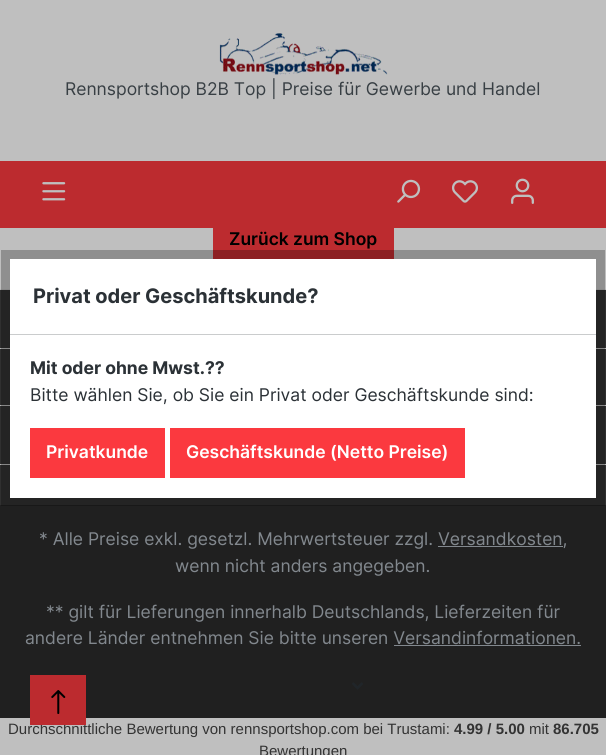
#include <cairo.h>
#include <math.h>
#include <stddef.h>


static void rgb(cairo_t *cr, int r, int g, int b)
{
	cairo_set_source_rgb(cr, r / 255.0, g / 255.0, b / 255.0);
}

static void face(cairo_t *cr, const char *family, double size, int italic, int bold)
{
	cairo_select_font_face(cr, family, italic ? CAIRO_FONT_SLANT_ITALIC : CAIRO_FONT_SLANT_NORMAL,
		bold ? CAIRO_FONT_WEIGHT_BOLD : CAIRO_FONT_WEIGHT_NORMAL);
	cairo_set_font_size(cr, size);
}

static void label(cairo_t *cr, double x, double y, const char *s)
{
	cairo_move_to(cr, x, y);
	cairo_show_text(cr, s);
}

static void rect(cairo_t *cr, double x, double y, double w, double h)
{
	cairo_rectangle(cr, x, y, w, h);
	cairo_fill(cr);
}

static void image(cairo_t *cr, const char *path, double x, double y, double w, double h)
{
	cairo_surface_t *image = cairo_image_surface_create_from_png(path);
	cairo_save(cr);
	cairo_set_source_surface(cr, image, x, y);
	cairo_rectangle(cr, x, y, w, h);
	cairo_fill(cr);
	cairo_restore(cr);
	cairo_surface_destroy(image);
}

static void draw(cairo_t *cr) {
	rgb(cr, 191, 191, 191);
	cairo_paint(cr);
	image(cr, "image0.png", 219, 33, 169, 42);
	face(cr, "Inter", 17.5, 0, 0);
	rgb(cr, 56, 63, 68);
	label(cr, 65, 95, "Rennsportshop B2B Top | Preise für Gewerbe und Handel");
	rgb(cr, 188, 43, 47);
	rect(cr, 0, 161, 606, 67);
	image(cr, "image1.png", 42, 182, 24, 19);
	image(cr, "image2.png", 397, 179, 24, 24);
	image(cr, "image3.png", 452, 180, 26, 23);
	image(cr, "image4.png", 511, 178, 23, 26);
	rect(cr, 213, 228, 181, 31);
	face(cr, "Inter SemiBold", 17.5, 0, 0);
	rgb(cr, 0, 0, 0);
	label(cr, 229, 245, "Zurück zum Shop");
	rgb(cr, 48, 48, 48);
	rect(cr, 0, 290, 606, 215);
	rgb(cr, 179, 179, 179);
	rect(cr, 0, 289, 606, 1);
	rect(cr, 0, 348, 606, 1);
	rect(cr, 0, 405, 606, 1);
	rect(cr, 0, 464, 606, 1);
	rgb(cr, 32, 32, 32);
	rect(cr, 0, 505, 606, 213);
	cairo_rectangle(cr, 5.5, 254.5, 595, 247);
	cairo_set_source_rgba(cr, 0, 0, 0, 0.25);
	cairo_set_line_width(cr, 9);
	cairo_stroke(cr);
	rgb(cr, 255, 255, 255);
	rect(cr, 10, 259, 586, 239);
	face(cr, "Inter", 20, 0, 1);
	rgb(cr, 43, 49, 54);
	label(cr, 33, 303, "Privat oder Geschäftskunde?");
	rgb(cr, 202, 204, 205);
	rect(cr, 10, 334, 586, 1);
	face(cr, "Inter", 17.5, 0, 1);
	rgb(cr, 43, 49, 54);
	label(cr, 30, 374, "Mit oder ohne Mwst.?\077");
	face(cr, "Inter", 17.5, 0, 0);
	label(cr, 30, 401, "Bitte wählen Sie, ob Sie ein Privat oder Geschäftskunde sind:");
	rgb(cr, 251, 57, 63);
	rect(cr, 30, 428, 135, 50);
	face(cr, "Inter SemiBold", 17.5, 0, 0);
	rgb(cr, 255, 255, 255);
	label(cr, 46, 458, "Privatkunde");
	rgb(cr, 251, 57, 63);
	rect(cr, 170, 428, 295, 50);
	rgb(cr, 255, 255, 255);
	label(cr, 186, 458, "Geschäftskunde (Netto Preise)");
	face(cr, "Inter", 17.5, 0, 0);
	rgb(cr, 130, 136, 142);
	label(cr, 39, 545, "* Alle Preise exkl. gesetzl. Mehrwertsteuer zzgl. Versandkosten,");
	rect(cr, 438, 546, 125, 1);
	label(cr, 175, 572, "wenn nicht anders angegeben.");
	label(cr, 46, 618, "** gilt für Lieferungen innerhalb Deutschlands, Lieferzeiten für");
	label(cr, 25, 644, "andere Länder entnehmen Sie bitte unseren Versandinformationen.");
	rect(cr, 394, 645, 187, 1);
	cairo_new_path(cr);
	cairo_move_to(cr, 352.5, 683);
	cairo_line_to(cr, 357.5, 688);
	cairo_line_to(cr, 362.5, 683);
	rgb(cr, 32, 37, 41);
	cairo_set_line_width(cr, 2.5);
	cairo_stroke(cr);
	face(cr, "Liberation Sans", 15, 0, 0);
	rgb(cr, 51, 51, 51);
	label(cr, 8, 734, "Durchschnittliche Bewertung von rennsportshop.com bei Trustami:");
	rgb(cr, 188, 43, 47);
	rect(cr, 30, 675, 56, 50);
	image(cr, "image5.png", 51, 690, 15, 24);
	face(cr, "Liberation Sans", 15, 0, 1);
	rgb(cr, 51, 51, 51);
	label(cr, 454, 734, "4.99 / 5.00");
	face(cr, "Liberation Sans", 15, 0, 0);
	label(cr, 529, 734, "mit");
	face(cr, "Liberation Sans", 15, 0, 1);
	label(cr, 553, 734, "86.705");
	face(cr, "Liberation Sans", 15, 0, 0);
	label(cr, 259, 756, "Bewertungen");
}

int main(void) {
	cairo_surface_t *surface = cairo_image_surface_create(CAIRO_FORMAT_RGB24, 606, 755);
	cairo_t *cr = cairo_create(surface);
	cairo_font_options_t *options = cairo_font_options_create();
	cairo_font_options_set_hint_metrics(options, CAIRO_HINT_METRICS_OFF);
	cairo_font_options_set_hint_style(options, CAIRO_HINT_STYLE_NONE);
	cairo_set_font_options(cr, options);
	cairo_set_miter_limit(cr, 4);
	draw(cr);
	cairo_surface_write_to_png(surface, "render.png");
	cairo_font_options_destroy(options);
	cairo_destroy(cr);
	cairo_surface_destroy(surface);
	return 0;
}
